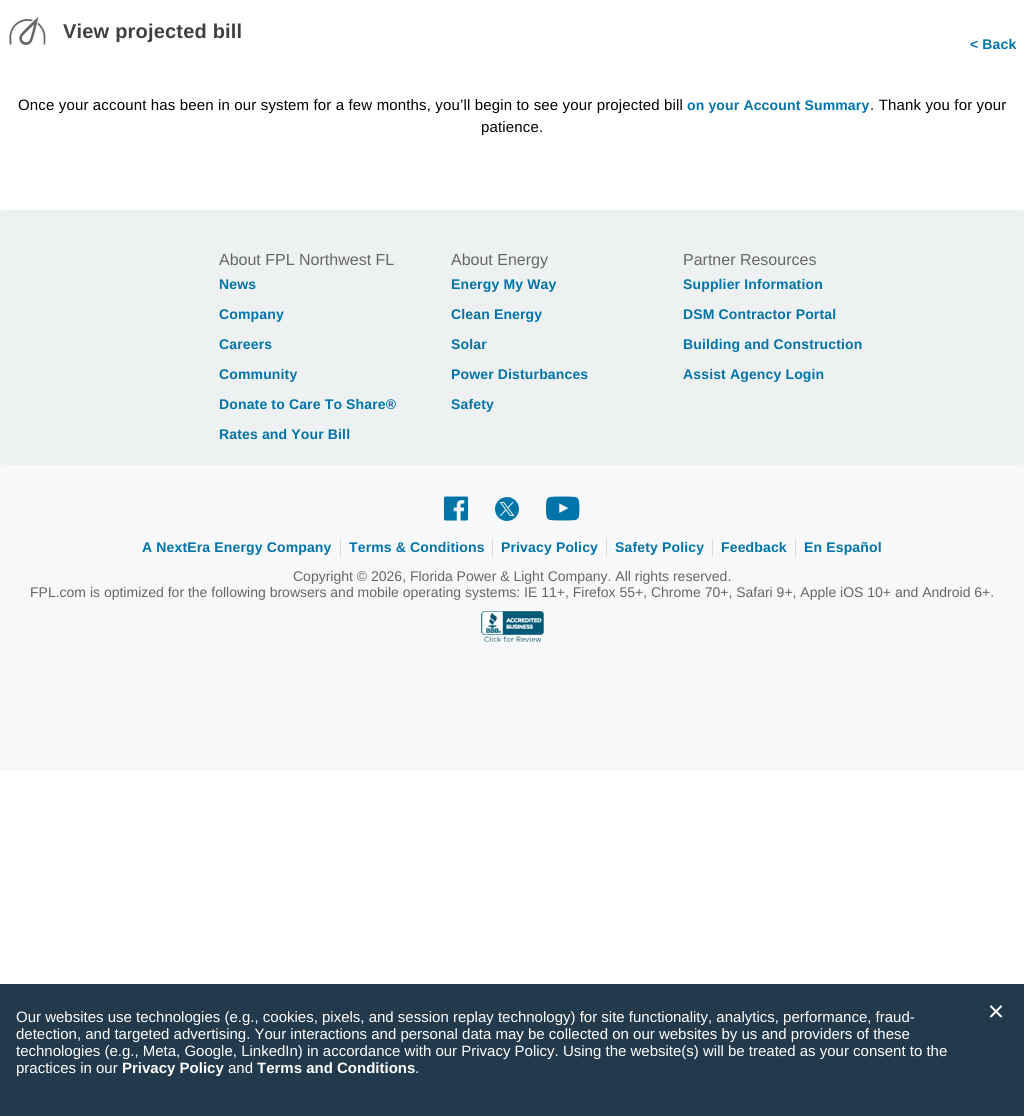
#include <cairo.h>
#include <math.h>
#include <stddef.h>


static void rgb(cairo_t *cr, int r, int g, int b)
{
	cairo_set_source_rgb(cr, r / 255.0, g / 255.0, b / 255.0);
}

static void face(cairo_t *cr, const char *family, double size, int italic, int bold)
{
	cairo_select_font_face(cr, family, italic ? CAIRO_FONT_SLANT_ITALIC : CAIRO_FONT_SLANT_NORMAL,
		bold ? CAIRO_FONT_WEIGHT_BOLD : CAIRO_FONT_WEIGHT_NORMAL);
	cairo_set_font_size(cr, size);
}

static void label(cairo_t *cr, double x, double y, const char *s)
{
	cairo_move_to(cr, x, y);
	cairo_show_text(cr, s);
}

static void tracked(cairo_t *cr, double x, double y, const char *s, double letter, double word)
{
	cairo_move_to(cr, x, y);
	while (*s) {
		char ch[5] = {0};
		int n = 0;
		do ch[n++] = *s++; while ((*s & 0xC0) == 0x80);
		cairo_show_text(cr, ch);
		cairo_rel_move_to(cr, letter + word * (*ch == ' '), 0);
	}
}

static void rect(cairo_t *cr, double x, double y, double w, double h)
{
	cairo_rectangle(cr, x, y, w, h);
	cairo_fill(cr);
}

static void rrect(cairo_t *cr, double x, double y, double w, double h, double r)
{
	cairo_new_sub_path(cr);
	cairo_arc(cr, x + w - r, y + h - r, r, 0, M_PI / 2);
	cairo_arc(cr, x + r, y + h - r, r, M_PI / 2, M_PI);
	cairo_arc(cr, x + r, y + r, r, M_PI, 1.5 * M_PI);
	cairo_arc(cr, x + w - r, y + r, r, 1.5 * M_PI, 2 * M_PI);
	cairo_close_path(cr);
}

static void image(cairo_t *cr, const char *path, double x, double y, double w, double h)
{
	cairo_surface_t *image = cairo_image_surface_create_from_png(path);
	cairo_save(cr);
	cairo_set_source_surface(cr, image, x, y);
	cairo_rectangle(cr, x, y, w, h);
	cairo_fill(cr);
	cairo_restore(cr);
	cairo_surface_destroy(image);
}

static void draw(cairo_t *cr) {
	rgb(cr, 255, 255, 255);
	cairo_paint(cr);
	image(cr, "image0.png", 9, 16, 37, 29);
	face(cr, "Liberation Sans", 20, 0, 1);
	rgb(cr, 64, 64, 64);
	tracked(cr, 63, 38, "View projected bill", 0.2, 0);
	face(cr, "Liberation Sans", 14, 0, 1);
	rgb(cr, 0, 115, 168);
	tracked(cr, 970, 49, "< Back", 0.15, 0);
	face(cr, "Liberation Sans", 15, 0, 0);
	rgb(cr, 0, 0, 0);
	tracked(cr, 18, 110, "Once your account has been in our system for a few months, you’ll begin to see your projected bill", 0.15, 0);
	face(cr, "Liberation Sans", 14, 0, 1);
	rgb(cr, 0, 115, 168);
	tracked(cr, 687, 110, "on your Account Summary", 0.15, 0);
	face(cr, "Liberation Sans", 15, 0, 0);
	rgb(cr, 0, 0, 0);
	tracked(cr, 870, 110, ". Thank you for your", 0.15, 0);
	tracked(cr, 481, 132, "patience.", 0.15, 0);
	rgb(cr, 238, 241, 242);
	rrect(cr, 0, 210, 1024, 255, 2);
	cairo_fill(cr);
	face(cr, "Liberation Sans", 16, 0, 0);
	rgb(cr, 102, 102, 102);
	label(cr, 219, 265, "About FPL Northwest FL");
	face(cr, "Liberation Sans", 14, 0, 1);
	rgb(cr, 0, 115, 168);
	tracked(cr, 219, 289, "News", 0.15, 0);
	tracked(cr, 219, 319, "Company", 0.15, 0);
	tracked(cr, 219, 349, "Careers", 0.15, 0);
	tracked(cr, 219, 379, "Community", 0.15, 0);
	tracked(cr, 219, 409, "Donate to Care To Share®", 0.15, 0);
	tracked(cr, 219, 439, "Rates and Your Bill", 0.15, 0);
	face(cr, "Liberation Sans", 16, 0, 0);
	rgb(cr, 102, 102, 102);
	label(cr, 451, 265, "About Energy");
	face(cr, "Liberation Sans", 14, 0, 1);
	rgb(cr, 0, 115, 168);
	tracked(cr, 451, 289, "Energy My Way", 0.15, 0);
	tracked(cr, 451, 319, "Clean Energy", 0.15, 0);
	tracked(cr, 451, 349, "Solar", 0.15, 0);
	tracked(cr, 451, 379, "Power Disturbances", 0.15, 0);
	tracked(cr, 451, 409, "Safety", 0.15, 0);
	face(cr, "Liberation Sans", 16, 0, 0);
	rgb(cr, 102, 102, 102);
	label(cr, 683, 265, "Partner Resources");
	face(cr, "Liberation Sans", 14, 0, 1);
	rgb(cr, 0, 115, 168);
	tracked(cr, 683, 289, "Supplier Information", 0.15, 0);
	tracked(cr, 683, 319, "DSM Contractor Portal", 0.15, 0);
	tracked(cr, 683, 349, "Building and Construction", 0.15, 0);
	tracked(cr, 683, 379, "Assist Agency Login", 0.15, 0);
	rgb(cr, 247, 248, 249);
	rrect(cr, 0, 465, 1024, 306, 2);
	cairo_fill(cr);
	rect(cr, 0, 465, 1024, 1);
	image(cr, "image1.png", 444, 496, 24, 25);
	image(cr, "image2.png", 495, 497, 24, 24);
	image(cr, "image3.png", 546, 496, 34, 25);
	rgb(cr, 0, 115, 168);
	tracked(cr, 142, 552, "A NextEra Energy Company", 0.15, 0);
	rgb(cr, 217, 218, 219);
	rect(cr, 340, 539, 1, 17);
	rgb(cr, 0, 115, 168);
	tracked(cr, 349, 552, "Terms & Conditions", 0.15, 0);
	rgb(cr, 217, 218, 219);
	rect(cr, 492, 539, 1, 17);
	rgb(cr, 0, 115, 168);
	tracked(cr, 501, 552, "Privacy Policy", 0.15, 0);
	rgb(cr, 217, 218, 219);
	rect(cr, 606, 539, 1, 17);
	rgb(cr, 0, 115, 168);
	tracked(cr, 615, 552, "Safety Policy", 0.15, 0);
	rgb(cr, 217, 218, 219);
	rect(cr, 712, 539, 1, 17);
	rgb(cr, 0, 115, 168);
	tracked(cr, 721, 552, "Feedback", 0.15, 0);
	rgb(cr, 217, 218, 219);
	rect(cr, 795, 539, 1, 17);
	rgb(cr, 0, 115, 168);
	tracked(cr, 804, 552, "En Español", 0.15, 0);
	face(cr, "Liberation Sans", 14, 0, 0);
	rgb(cr, 102, 102, 102);
	label(cr, 293, 581, "Copyright © 2026, Florida Power & Light Company. All rights reserved.");
	label(cr, 30, 597, "FPL.com is optimized for the following browsers and mobile operating systems: IE 11+, Firefox 55+, Chrome 70+, Safari 9+, Apple iOS 10+ and Android 6+.");
	image(cr, "image4.png", 481, 610, 63, 33);
	rgb(cr, 34, 58, 75);
	rect(cr, 0, 984, 1024, 132);
	face(cr, "Liberation Sans", 15, 0, 0);
	rgb(cr, 255, 255, 255);
	label(cr, 16, 1022, "Our websites use technologies (e.g., cookies, pixels, and session replay technology) for site functionality, analytics, performance, fraud-");
	label(cr, 16, 1039, "detection, and targeted advertising. Your interactions and personal data may be collected on our websites by us and providers of these");
	label(cr, 16, 1056, "technologies (e.g., Meta, Google, LinkedIn) in accordance with our Privacy Policy. Using the website(s) will be treated as your consent to the");
	label(cr, 16, 1073, "practices in our");
	face(cr, "Liberation Sans", 15, 0, 1);
	label(cr, 122, 1073, "Privacy Policy");
	face(cr, "Liberation Sans", 15, 0, 0);
	label(cr, 228, 1073, "and");
	face(cr, "Liberation Sans", 15, 0, 1);
	label(cr, 257, 1073, "Terms and Conditions");
	face(cr, "Liberation Sans", 15, 0, 0);
	label(cr, 415, 1073, ".");
	image(cr, "image5.png", 989, 1005, 14, 13);
}

int main(void) {
	cairo_surface_t *surface = cairo_image_surface_create(CAIRO_FORMAT_RGB24, 1024, 1116);
	cairo_t *cr = cairo_create(surface);
	cairo_font_options_t *options = cairo_font_options_create();
	cairo_font_options_set_hint_metrics(options, CAIRO_HINT_METRICS_OFF);
	cairo_font_options_set_hint_style(options, CAIRO_HINT_STYLE_NONE);
	cairo_set_font_options(cr, options);
	cairo_set_miter_limit(cr, 4);
	draw(cr);
	cairo_surface_write_to_png(surface, "render.png");
	cairo_font_options_destroy(options);
	cairo_destroy(cr);
	cairo_surface_destroy(surface);
	return 0;
}
